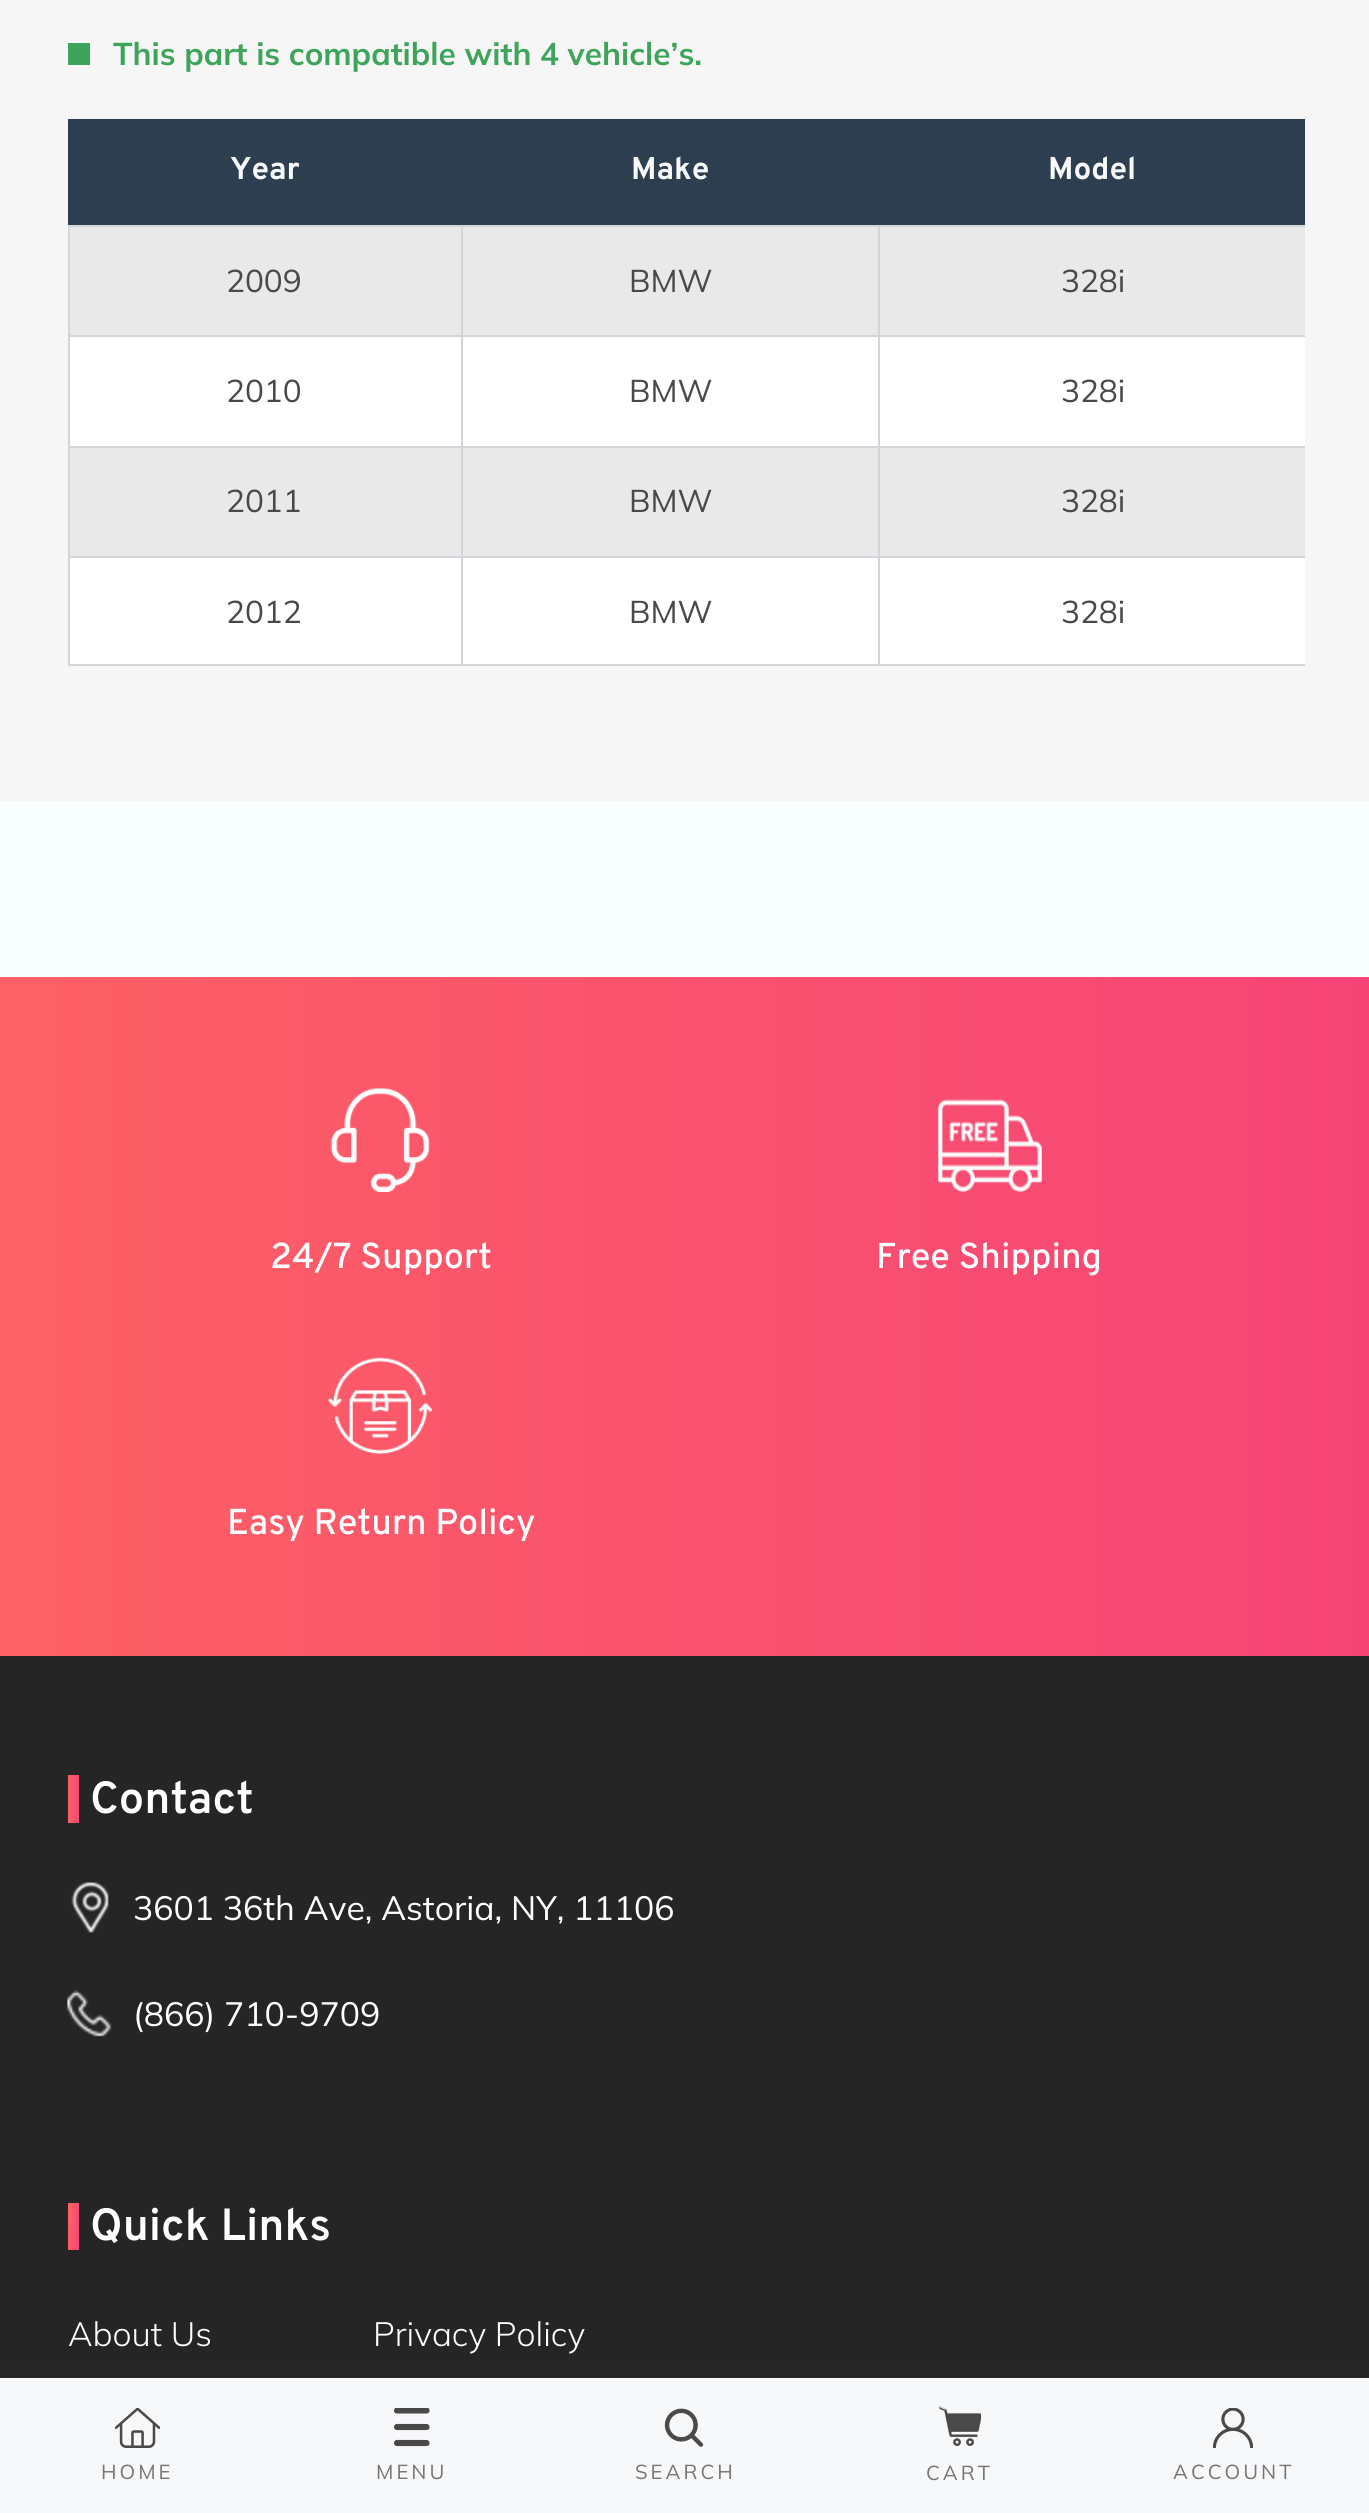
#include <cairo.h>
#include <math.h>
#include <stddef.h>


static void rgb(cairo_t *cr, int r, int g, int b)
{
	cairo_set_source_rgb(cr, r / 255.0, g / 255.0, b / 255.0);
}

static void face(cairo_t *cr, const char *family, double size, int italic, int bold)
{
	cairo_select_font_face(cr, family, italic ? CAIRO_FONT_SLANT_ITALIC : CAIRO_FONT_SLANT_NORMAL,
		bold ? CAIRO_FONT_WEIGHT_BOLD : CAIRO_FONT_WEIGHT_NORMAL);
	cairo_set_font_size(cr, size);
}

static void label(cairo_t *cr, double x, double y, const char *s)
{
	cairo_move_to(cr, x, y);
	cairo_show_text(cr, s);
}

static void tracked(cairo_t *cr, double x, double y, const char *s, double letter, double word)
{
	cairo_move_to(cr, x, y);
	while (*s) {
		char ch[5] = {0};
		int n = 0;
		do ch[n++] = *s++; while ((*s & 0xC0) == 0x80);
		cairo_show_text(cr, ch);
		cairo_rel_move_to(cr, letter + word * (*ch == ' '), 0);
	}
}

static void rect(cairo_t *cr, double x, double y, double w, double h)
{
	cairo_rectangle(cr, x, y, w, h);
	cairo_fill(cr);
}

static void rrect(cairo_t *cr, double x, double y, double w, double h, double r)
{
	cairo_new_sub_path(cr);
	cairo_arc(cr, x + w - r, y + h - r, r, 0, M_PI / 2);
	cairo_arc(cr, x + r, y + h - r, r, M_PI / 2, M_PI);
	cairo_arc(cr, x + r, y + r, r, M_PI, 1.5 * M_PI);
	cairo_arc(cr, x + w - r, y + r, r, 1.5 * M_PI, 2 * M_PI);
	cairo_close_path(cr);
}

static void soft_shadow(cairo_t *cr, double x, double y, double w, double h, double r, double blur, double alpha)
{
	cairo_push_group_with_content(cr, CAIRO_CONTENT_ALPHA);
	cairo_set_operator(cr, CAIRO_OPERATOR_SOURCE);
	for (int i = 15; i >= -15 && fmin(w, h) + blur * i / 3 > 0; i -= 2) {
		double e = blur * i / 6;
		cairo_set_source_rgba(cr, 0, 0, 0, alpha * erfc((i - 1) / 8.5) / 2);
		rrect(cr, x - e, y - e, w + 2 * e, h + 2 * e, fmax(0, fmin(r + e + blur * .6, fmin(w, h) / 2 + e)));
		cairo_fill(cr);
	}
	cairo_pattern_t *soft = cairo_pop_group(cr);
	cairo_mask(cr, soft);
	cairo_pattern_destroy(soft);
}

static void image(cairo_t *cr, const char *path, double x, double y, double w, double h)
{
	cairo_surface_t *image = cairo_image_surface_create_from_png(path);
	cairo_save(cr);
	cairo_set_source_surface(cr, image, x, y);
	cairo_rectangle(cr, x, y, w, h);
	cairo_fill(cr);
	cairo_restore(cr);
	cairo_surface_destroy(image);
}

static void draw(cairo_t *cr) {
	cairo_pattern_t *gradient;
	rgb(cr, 249, 254, 254);
	cairo_paint(cr);
	rgb(cr, 246, 246, 246);
	rect(cr, 0, 0, 1369, 801);
	rgb(cr, 63, 164, 91);
	rect(cr, 68, 43, 22, 22);
	face(cr, "Muli", 31.5, 0, 1);
	label(cr, 113, 65, "This part is compatible with 4 vehicle’s.");
	rgb(cr, 44, 62, 80);
	rect(cr, 68, 119, 1237, 106);
	face(cr, "Overpass", 31.5, 0, 1);
	rgb(cr, 247, 248, 250);
	label(cr, 230, 179, "Year");
	label(cr, 631, 179, "Make");
	label(cr, 1048, 179, "Model");
	rgb(cr, 233, 233, 233);
	rect(cr, 70, 227, 1235, 108);
	rgb(cr, 210, 213, 217);
	rect(cr, 878, 225, 427, 2);
	rgb(cr, 255, 255, 255);
	rect(cr, 70, 337, 1235, 109);
	rgb(cr, 210, 213, 217);
	rect(cr, 878, 335, 427, 2);
	rect(cr, 878, 446, 427, 2);
	rgb(cr, 233, 233, 233);
	rect(cr, 70, 448, 1235, 108);
	rgb(cr, 210, 213, 217);
	rect(cr, 878, 556, 427, 2);
	rgb(cr, 255, 255, 255);
	rect(cr, 70, 558, 1235, 106);
	rgb(cr, 210, 213, 217);
	rect(cr, 878, 664, 427, 2);
	rect(cr, 878, 556, 2, 110);
	rect(cr, 461, 556, 419, 2);
	rect(cr, 878, 446, 2, 112);
	rect(cr, 461, 446, 419, 2);
	rect(cr, 878, 335, 2, 113);
	rect(cr, 461, 335, 419, 2);
	rect(cr, 878, 225, 2, 113);
	rect(cr, 461, 225, 419, 2);
	rect(cr, 461, 664, 419, 2);
	rect(cr, 461, 556, 2, 110);
	rect(cr, 68, 556, 396, 2);
	rect(cr, 461, 446, 2, 112);
	rect(cr, 68, 446, 396, 2);
	rect(cr, 461, 335, 2, 113);
	rect(cr, 68, 335, 396, 2);
	rect(cr, 461, 225, 2, 113);
	rect(cr, 68, 225, 396, 2);
	rect(cr, 68, 664, 396, 2);
	rect(cr, 68, 556, 2, 110);
	rect(cr, 68, 446, 2, 112);
	rect(cr, 68, 335, 2, 113);
	rect(cr, 68, 225, 2, 113);
	face(cr, "Muli", 31.5, 0, 0);
	rgb(cr, 73, 73, 73);
	label(cr, 226, 292, "2009");
	label(cr, 629, 292, "BMW");
	label(cr, 1061, 292, "328i");
	label(cr, 226, 402, "2010");
	label(cr, 629, 402, "BMW");
	label(cr, 1061, 402, "328i");
	label(cr, 226, 512, "2011");
	label(cr, 629, 512, "BMW");
	label(cr, 1061, 512, "328i");
	label(cr, 226, 623, "2012");
	label(cr, 629, 623, "BMW");
	label(cr, 1061, 623, "328i");
	gradient = cairo_pattern_create_linear(0, 1316, 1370, 1316);
	cairo_pattern_add_color_stop_rgba(gradient, 0.03, 0.992, 0.376, 0.396, 1);
	cairo_pattern_add_color_stop_rgba(gradient, 1, 0.965, 0.267, 0.467, 1);
	cairo_set_source(cr, gradient);
	cairo_pattern_destroy(gradient);
	rect(cr, 0, 977, 1369, 679);
	image(cr, "image0.png", 330, 1088, 100, 104);
	face(cr, "Overpass Medium", 36, 0, 0);
	rgb(cr, 255, 255, 255);
	label(cr, 270, 1268, "24/7 Support");
	image(cr, "image1.png", 938, 1099, 104, 93);
	label(cr, 876, 1268, "Free Shipping");
	image(cr, "image2.png", 328, 1357, 104, 98);
	label(cr, 227, 1534, "Easy Return Policy");
	rgb(cr, 37, 37, 37);
	rect(cr, 0, 1656, 1369, 722);
	gradient = cairo_pattern_create_linear(67, 1799, 80, 1799);
	cairo_pattern_add_color_stop_rgba(gradient, 0, 0.996, 0.396, 0.38, 1);
	cairo_pattern_add_color_stop_rgba(gradient, 1, 0.965, 0.267, 0.467, 1);
	cairo_set_source(cr, gradient);
	cairo_pattern_destroy(gradient);
	rect(cr, 68, 1775, 11, 48);
	face(cr, "Overpass SemiBold", 45, 0, 0);
	rgb(cr, 255, 255, 255);
	label(cr, 90, 1813, "Contact");
	image(cr, "image3.png", 71, 1882, 38, 51);
	face(cr, "Muli", 33.75, 0, 0);
	label(cr, 133, 1920, "3601 36th Ave, Astoria, NY, 11106");
	image(cr, "image4.png", 67, 1990, 45, 47);
	label(cr, 133, 2026, "(866) 710-9709");
	gradient = cairo_pattern_create_linear(67, 2226, 80, 2227);
	cairo_pattern_add_color_stop_rgba(gradient, 0, 0.996, 0.396, 0.38, 1);
	cairo_pattern_add_color_stop_rgba(gradient, 1, 0.965, 0.267, 0.467, 1);
	cairo_set_source(cr, gradient);
	cairo_pattern_destroy(gradient);
	rect(cr, 68, 2203, 11, 47);
	face(cr, "Overpass SemiBold", 45, 0, 0);
	rgb(cr, 255, 255, 255);
	label(cr, 90, 2240, "Quick Links");
	face(cr, "Muli Light", 33.75, 0, 0);
	label(cr, 68, 2346, "About Us");
	label(cr, 373, 2346, "Privacy Policy");
	rgb(cr, 73, 73, 73);
	soft_shadow(cr, 0, 2381, 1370, 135, 0, 9, 0.15);
	rgb(cr, 247, 248, 250);
	rect(cr, 0, 2378, 1369, 135);
	image(cr, "image5.png", 115, 2408, 45, 40);
	face(cr, "Muli", 20.25, 0, 0);
	rgb(cr, 117, 117, 117);
	tracked(cr, 101, 2479, "HOME", 3, 0);
	cairo_save(cr);
	cairo_rectangle(cr, 394, 2408, 36, 40);
	cairo_clip(cr);
	cairo_new_path(cr);
	cairo_move_to(cr, 397, 2410.5);
	cairo_line_to(cr, 426.5, 2410.5);
	rgb(cr, 73, 73, 73);
	cairo_set_line_width(cr, 6.1);
	cairo_set_line_cap(cr, CAIRO_LINE_CAP_ROUND);
	cairo_stroke(cr);
	cairo_restore(cr);
	cairo_new_path(cr);
	cairo_move_to(cr, 397, 2427);
	cairo_line_to(cr, 426.5, 2427);
	cairo_move_to(cr, 397, 2443);
	cairo_line_to(cr, 426.5, 2443);
	rgb(cr, 73, 73, 73);
	cairo_set_line_width(cr, 6.1);
	cairo_set_line_cap(cr, CAIRO_LINE_CAP_ROUND);
	cairo_stroke(cr);
	rgb(cr, 117, 117, 117);
	tracked(cr, 376, 2479, "MENU", 3, 0);
	image(cr, "image6.png", 664, 2408, 40, 39);
	tracked(cr, 635, 2479, "SEARCH", 3, 0);
	image(cr, "image7.png", 939, 2406, 42, 40);
	tracked(cr, 926, 2480, "CART", 3, 0);
	image(cr, "image8.png", 1213, 2408, 40, 40);
	tracked(cr, 1173, 2479, "ACCOUNT", 3, 0);
}

int main(void) {
	cairo_surface_t *surface = cairo_image_surface_create(CAIRO_FORMAT_RGB24, 1369, 2513);
	cairo_t *cr = cairo_create(surface);
	cairo_font_options_t *options = cairo_font_options_create();
	cairo_font_options_set_hint_metrics(options, CAIRO_HINT_METRICS_OFF);
	cairo_font_options_set_hint_style(options, CAIRO_HINT_STYLE_NONE);
	cairo_set_font_options(cr, options);
	cairo_set_miter_limit(cr, 4);
	draw(cr);
	cairo_surface_write_to_png(surface, "render.png");
	cairo_font_options_destroy(options);
	cairo_destroy(cr);
	cairo_surface_destroy(surface);
	return 0;
}
